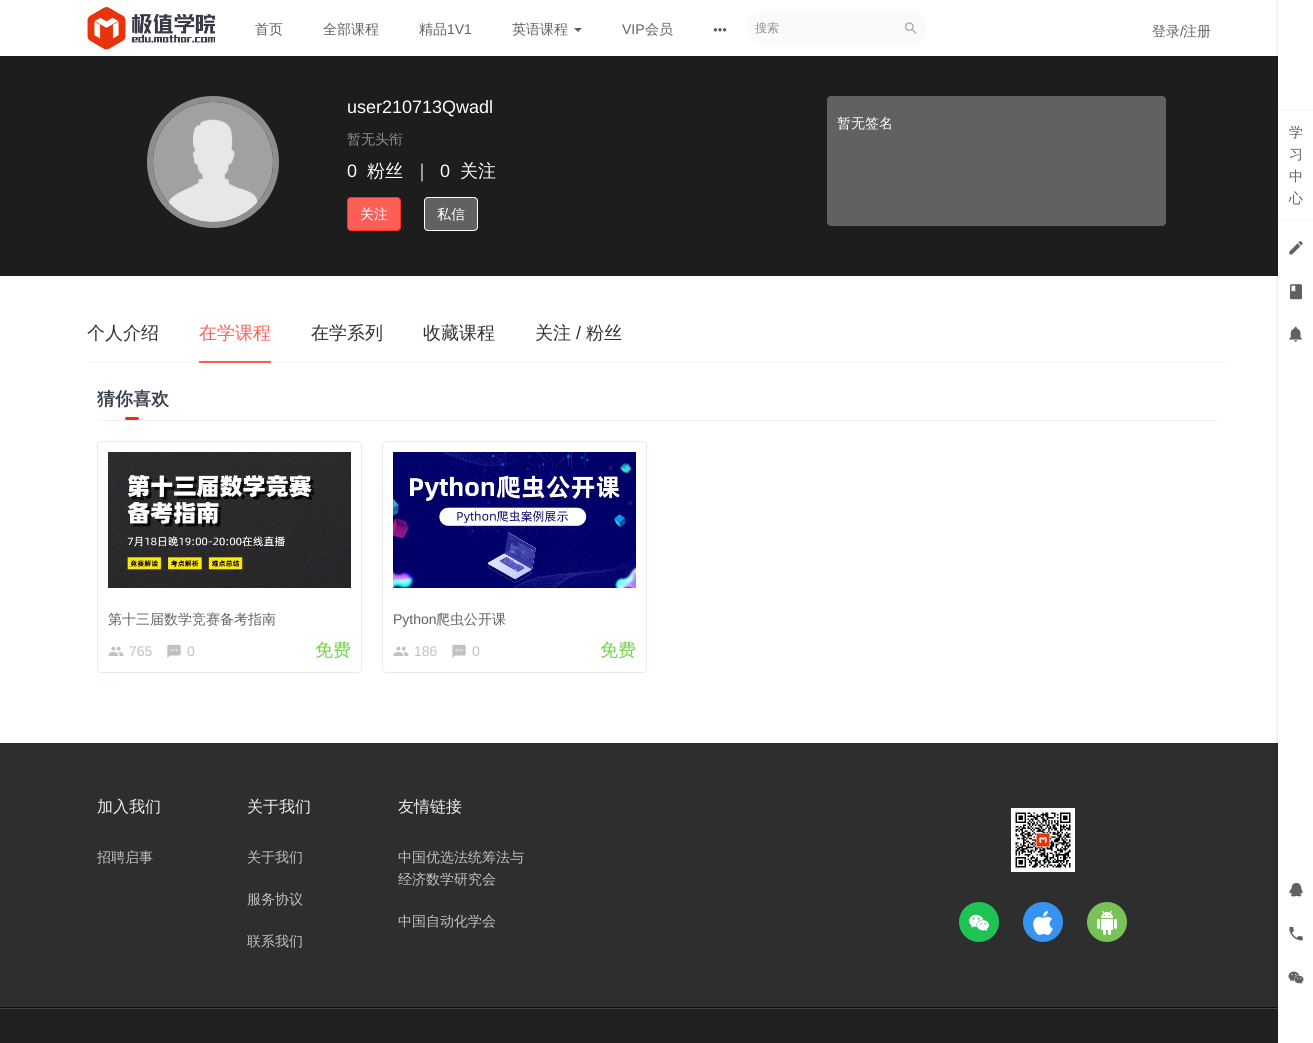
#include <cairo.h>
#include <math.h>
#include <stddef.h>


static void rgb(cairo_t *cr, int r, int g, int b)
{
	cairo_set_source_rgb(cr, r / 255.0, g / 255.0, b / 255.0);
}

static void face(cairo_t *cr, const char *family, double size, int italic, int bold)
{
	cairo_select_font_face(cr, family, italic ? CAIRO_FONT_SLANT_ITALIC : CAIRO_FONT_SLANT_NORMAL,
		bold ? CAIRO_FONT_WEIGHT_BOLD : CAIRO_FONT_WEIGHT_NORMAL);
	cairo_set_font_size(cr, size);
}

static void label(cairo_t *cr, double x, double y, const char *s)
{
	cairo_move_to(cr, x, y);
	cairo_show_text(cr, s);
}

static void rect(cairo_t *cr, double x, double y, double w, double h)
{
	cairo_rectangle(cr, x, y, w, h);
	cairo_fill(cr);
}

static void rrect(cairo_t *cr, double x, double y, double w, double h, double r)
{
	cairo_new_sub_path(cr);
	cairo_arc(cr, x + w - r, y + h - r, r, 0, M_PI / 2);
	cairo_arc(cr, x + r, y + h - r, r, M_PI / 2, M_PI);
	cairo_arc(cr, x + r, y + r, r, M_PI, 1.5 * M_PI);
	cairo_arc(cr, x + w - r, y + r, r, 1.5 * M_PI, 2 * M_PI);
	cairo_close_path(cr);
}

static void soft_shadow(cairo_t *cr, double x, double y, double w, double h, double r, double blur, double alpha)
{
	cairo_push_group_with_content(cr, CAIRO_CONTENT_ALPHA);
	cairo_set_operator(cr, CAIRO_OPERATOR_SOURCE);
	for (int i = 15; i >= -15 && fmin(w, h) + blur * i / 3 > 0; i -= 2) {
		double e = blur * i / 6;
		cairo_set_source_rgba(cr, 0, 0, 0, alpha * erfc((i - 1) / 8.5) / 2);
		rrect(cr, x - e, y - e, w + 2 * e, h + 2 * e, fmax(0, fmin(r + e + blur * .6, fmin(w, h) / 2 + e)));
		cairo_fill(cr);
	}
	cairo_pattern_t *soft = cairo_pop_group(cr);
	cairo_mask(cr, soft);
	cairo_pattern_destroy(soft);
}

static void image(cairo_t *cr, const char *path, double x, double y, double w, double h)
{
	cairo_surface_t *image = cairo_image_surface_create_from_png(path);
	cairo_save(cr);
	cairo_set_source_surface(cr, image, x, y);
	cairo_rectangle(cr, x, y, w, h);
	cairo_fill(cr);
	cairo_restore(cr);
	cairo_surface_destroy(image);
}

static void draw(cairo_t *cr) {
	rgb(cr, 255, 255, 255);
	cairo_paint(cr);
	image(cr, "image0.png", 87, 7, 128, 43);
	face(cr, "WenQuanYi Zen Hei Medium", 14, 0, 0);
	rgb(cr, 97, 97, 97);
	label(cr, 255, 34, "首页");
	label(cr, 323, 34, "全部课程");
	label(cr, 419, 34, "精品");
	face(cr, "Liberation Sans", 14, 0, 0);
	label(cr, 447, 34, "1V1");
	face(cr, "WenQuanYi Zen Hei Medium", 14, 0, 0);
	label(cr, 512, 34, "英语课程");
	cairo_new_path(cr);
	cairo_move_to(cr, 574, 28);
	cairo_line_to(cr, 582, 28);
	cairo_line_to(cr, 578, 32);
	cairo_close_path(cr);
	cairo_fill(cr);
	face(cr, "Liberation Sans", 14, 0, 0);
	label(cr, 622, 34, "VIP");
	face(cr, "WenQuanYi Zen Hei Medium", 14, 0, 0);
	label(cr, 645, 34, "会员");
	image(cr, "image1.png", 713, 28, 14, 4);
	rgb(cr, 250, 250, 250);
	rrect(cr, 747, 11, 180, 34, 17);
	cairo_fill(cr);
	face(cr, "WenQuanYi Zen Hei Medium", 12, 0, 0);
	rgb(cr, 142, 142, 142);
	label(cr, 755, 32, "搜索");
	image(cr, "image2.png", 905, 22, 12, 12);
	face(cr, "WenQuanYi Zen Hei Medium", 14, 0, 0);
	rgb(cr, 97, 97, 97);
	label(cr, 1152, 36, "登录");
	face(cr, "Liberation Sans", 14, 0, 0);
	label(cr, 1180, 36, "/");
	face(cr, "WenQuanYi Zen Hei Medium", 14, 0, 0);
	label(cr, 1183, 36, "注册");
	rgb(cr, 29, 29, 29);
	rect(cr, 0, 56, 1278, 220);
	cairo_new_path(cr);
	cairo_arc(cr, 213, 162, 63, 0, 2 * M_PI);
	rgb(cr, 142, 142, 142);
	cairo_set_line_width(cr, 6);
	cairo_stroke(cr);
	image(cr, "image3.png", 153, 102, 120, 120);
	face(cr, "Liberation Sans", 18, 0, 0);
	rgb(cr, 255, 255, 255);
	label(cr, 347, 113, "user210713Qwadl");
	face(cr, "WenQuanYi Zen Hei Medium", 14, 0, 0);
	rgb(cr, 142, 142, 142);
	label(cr, 347, 144, "暂无头衔");
	face(cr, "Liberation Sans", 18, 0, 0);
	rgb(cr, 255, 255, 255);
	label(cr, 347, 177, "0");
	face(cr, "WenQuanYi Zen Hei Medium", 18, 0, 0);
	label(cr, 367, 177, "粉丝");
	label(cr, 413, 177, "｜");
	face(cr, "Liberation Sans", 18, 0, 0);
	label(cr, 440, 177, "0");
	face(cr, "WenQuanYi Zen Hei Medium", 18, 0, 0);
	label(cr, 460, 177, "关注");
	rgb(cr, 253, 95, 86);
	rrect(cr, 347.5, 197.5, 53, 33, 3.5);
	cairo_fill_preserve(cr);
	rgb(cr, 252, 47, 36);
	cairo_set_line_width(cr, 1);
	cairo_stroke(cr);
	face(cr, "WenQuanYi Zen Hei Medium", 14, 0, 0);
	rgb(cr, 255, 255, 255);
	label(cr, 360, 219, "关注");
	rgb(cr, 97, 97, 97);
	rrect(cr, 424.5, 197.5, 53, 33, 3.5);
	cairo_fill_preserve(cr);
	rgb(cr, 255, 255, 255);
	cairo_stroke(cr);
	label(cr, 437, 219, "私信");
	rgb(cr, 97, 97, 97);
	rrect(cr, 827, 96, 339, 130, 4);
	cairo_fill(cr);
	rgb(cr, 255, 255, 255);
	label(cr, 837, 128, "暂无签名");
	rgb(cr, 245, 245, 245);
	rect(cr, 87, 362, 1140, 1);
	face(cr, "WenQuanYi Zen Hei Medium", 18, 0, 0);
	rgb(cr, 49, 49, 49);
	label(cr, 87, 339, "个人介绍");
	rgb(cr, 253, 95, 86);
	label(cr, 199, 339, "在学课程");
	rgb(cr, 49, 49, 49);
	label(cr, 311, 339, "在学系列");
	label(cr, 423, 339, "收藏课程");
	label(cr, 535, 339, "关注");
	face(cr, "Liberation Sans", 18, 0, 0);
	label(cr, 576, 339, "/");
	face(cr, "WenQuanYi Zen Hei Medium", 18, 0, 0);
	label(cr, 586, 339, "粉丝");
	rgb(cr, 253, 95, 86);
	rect(cr, 199, 361, 72, 2);
	rgb(cr, 242, 242, 242);
	rect(cr, 97, 420, 1120, 1);
	face(cr, "WenQuanYi Zen Hei", 18, 0, 1);
	rgb(cr, 54, 64, 74);
	label(cr, 97, 405, "猜你喜欢");
	rgb(cr, 232, 52, 12);
	rrect(cr, 125, 417, 14, 3, 1.5);
	cairo_fill(cr);
	rrect(cr, 97.5, 441.5, 264, 231, 3.5);
	rgb(cr, 228, 236, 243);
	cairo_stroke(cr);
	image(cr, "image4.png", 108, 452, 243, 136);
	face(cr, "WenQuanYi Zen Hei Medium", 14, 0, 0);
	rgb(cr, 97, 97, 97);
	label(cr, 108, 624, "第十三届数学竞赛备考指南");
	image(cr, "image5.png", 108, 646, 16, 10);
	face(cr, "Liberation Sans", 14, 0, 0);
	rgb(cr, 193, 193, 193);
	label(cr, 129, 656, "765");
	image(cr, "image6.png", 167, 644, 14, 14);
	label(cr, 187, 656, "0");
	face(cr, "WenQuanYi Zen Hei Medium", 18, 0, 0);
	rgb(cr, 112, 212, 69);
	label(cr, 315, 656, "免费");
	rrect(cr, 382.5, 441.5, 264, 231, 3.5);
	rgb(cr, 228, 236, 243);
	cairo_stroke(cr);
	image(cr, "image7.png", 393, 452, 243, 136);
	face(cr, "Liberation Sans", 14, 0, 0);
	rgb(cr, 97, 97, 97);
	label(cr, 393, 624, "Python");
	face(cr, "WenQuanYi Zen Hei Medium", 14, 0, 0);
	label(cr, 436, 624, "爬虫公开课");
	image(cr, "image5.png", 393, 646, 16, 10);
	face(cr, "Liberation Sans", 14, 0, 0);
	rgb(cr, 193, 193, 193);
	label(cr, 414, 656, "186");
	image(cr, "image6.png", 452, 644, 14, 14);
	label(cr, 472, 656, "0");
	face(cr, "WenQuanYi Zen Hei Medium", 18, 0, 0);
	rgb(cr, 112, 212, 69);
	label(cr, 600, 656, "免费");
	rgb(cr, 46, 46, 46);
	rect(cr, 0, 743, 1278, 264);
	rgb(cr, 17, 17, 17);
	rect(cr, 0, 1007, 1278, 1);
	face(cr, "WenQuanYi Zen Hei Medium", 16, 0, 0);
	rgb(cr, 238, 238, 238);
	label(cr, 97, 812, "加入我们");
	face(cr, "WenQuanYi Zen Hei Medium", 14, 0, 0);
	rgb(cr, 193, 193, 193);
	label(cr, 97, 862, "招聘启事");
	face(cr, "WenQuanYi Zen Hei Medium", 16, 0, 0);
	rgb(cr, 238, 238, 238);
	label(cr, 247, 812, "关于我们");
	face(cr, "WenQuanYi Zen Hei Medium", 14, 0, 0);
	rgb(cr, 193, 193, 193);
	label(cr, 247, 862, "关于我们");
	label(cr, 247, 904, "服务协议");
	label(cr, 247, 946, "联系我们");
	face(cr, "WenQuanYi Zen Hei Medium", 16, 0, 0);
	rgb(cr, 238, 238, 238);
	label(cr, 398, 812, "友情链接");
	face(cr, "WenQuanYi Zen Hei Medium", 14, 0, 0);
	rgb(cr, 193, 193, 193);
	label(cr, 398, 862, "中国优选法统筹法与");
	label(cr, 398, 884, "经济数学研究会");
	label(cr, 398, 926, "中国自动化学会");
	image(cr, "image8.png", 1011, 808, 64, 64);
	rgb(cr, 30, 195, 84);
	cairo_arc(cr, 979, 922, 20, 0, 2 * M_PI);
	cairo_fill(cr);
	image(cr, "image9.png", 969, 914, 20, 17);
	rgb(cr, 55, 147, 241);
	cairo_arc(cr, 1043, 922, 20, 0, 2 * M_PI);
	cairo_fill(cr);
	image(cr, "image10.png", 1033, 911, 20, 24);
	rgb(cr, 120, 194, 87);
	cairo_arc(cr, 1107, 922, 20, 0, 2 * M_PI);
	cairo_fill(cr);
	image(cr, "image11.png", 1097, 911, 20, 24);
	rgb(cr, 33, 33, 33);
	rect(cr, 0, 1009, 1278, 34);
	rgb(cr, 68, 68, 68);
	rect(cr, 0, 1008, 1278, 1);
	cairo_save(cr);
	cairo_rectangle(cr, 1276, 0, 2, 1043);
	cairo_clip(cr);
	rgb(cr, 0, 0, 0);
	soft_shadow(cr, 1277, 0, 35, 1043, 0, 1, 0.1);
	cairo_restore(cr);
	rgb(cr, 245, 245, 245);
	rect(cr, 1278, 110, 35, 1);
	rect(cr, 1278, 219, 35, 1);
	rgb(cr, 97, 97, 97);
	label(cr, 1289, 137, "学");
	label(cr, 1289, 159, "习");
	label(cr, 1289, 181, "中");
	label(cr, 1289, 203, "心");
	image(cr, "image12.png", 1289, 241, 14, 14);
	image(cr, "image13.png", 1290, 284, 12, 16);
	image(cr, "image14.png", 1289, 326, 13, 16);
	image(cr, "image15.png", 1289, 883, 14, 14);
	image(cr, "image16.png", 1289, 927, 14, 14);
	image(cr, "image17.png", 1288, 971, 16, 13);
}

int main(void) {
	cairo_surface_t *surface = cairo_image_surface_create(CAIRO_FORMAT_RGB24, 1313, 1043);
	cairo_t *cr = cairo_create(surface);
	cairo_font_options_t *options = cairo_font_options_create();
	cairo_font_options_set_hint_metrics(options, CAIRO_HINT_METRICS_OFF);
	cairo_font_options_set_hint_style(options, CAIRO_HINT_STYLE_NONE);
	cairo_set_font_options(cr, options);
	cairo_set_miter_limit(cr, 4);
	draw(cr);
	cairo_surface_write_to_png(surface, "render.png");
	cairo_font_options_destroy(options);
	cairo_destroy(cr);
	cairo_surface_destroy(surface);
	return 0;
}
